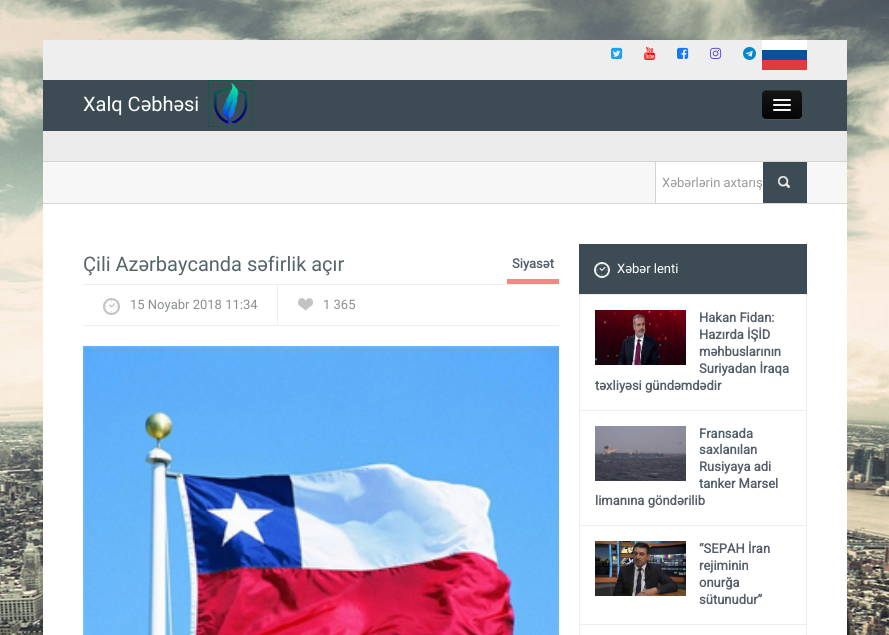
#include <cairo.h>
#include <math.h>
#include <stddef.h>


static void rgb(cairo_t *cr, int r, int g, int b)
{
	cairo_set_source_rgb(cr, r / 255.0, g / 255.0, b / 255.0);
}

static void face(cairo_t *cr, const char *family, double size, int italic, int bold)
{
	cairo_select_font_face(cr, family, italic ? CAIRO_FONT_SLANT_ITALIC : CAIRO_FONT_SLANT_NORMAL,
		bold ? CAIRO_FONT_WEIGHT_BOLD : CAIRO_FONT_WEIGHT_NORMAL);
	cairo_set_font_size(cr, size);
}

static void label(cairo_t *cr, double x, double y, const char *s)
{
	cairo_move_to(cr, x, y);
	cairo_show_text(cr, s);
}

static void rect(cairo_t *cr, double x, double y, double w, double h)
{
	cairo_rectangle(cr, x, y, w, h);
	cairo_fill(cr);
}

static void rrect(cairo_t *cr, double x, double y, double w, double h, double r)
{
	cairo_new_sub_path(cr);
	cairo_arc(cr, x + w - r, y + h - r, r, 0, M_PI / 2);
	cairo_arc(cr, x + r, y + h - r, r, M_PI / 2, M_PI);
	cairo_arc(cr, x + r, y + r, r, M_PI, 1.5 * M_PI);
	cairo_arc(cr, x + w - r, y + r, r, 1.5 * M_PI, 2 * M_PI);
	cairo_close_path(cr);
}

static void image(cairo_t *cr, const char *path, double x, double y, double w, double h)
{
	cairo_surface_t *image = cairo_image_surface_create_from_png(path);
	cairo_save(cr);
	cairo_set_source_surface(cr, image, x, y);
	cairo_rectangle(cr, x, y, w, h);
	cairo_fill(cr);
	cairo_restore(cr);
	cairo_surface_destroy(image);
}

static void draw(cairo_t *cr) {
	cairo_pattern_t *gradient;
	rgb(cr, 255, 255, 255);
	cairo_paint(cr);
	image(cr, "image0.png", 0, 0, 889, 635);
	rgb(cr, 238, 238, 238);
	rect(cr, 43, 40, 804, 40);
	image(cr, "image1.png", 611, 47, 12, 12);
	image(cr, "image2.png", 644, 46, 11, 14);
	image(cr, "image3.png", 677, 47, 12, 12);
	image(cr, "image4.png", 710, 47, 12, 12);
	image(cr, "image5.png", 743, 46, 13, 14);
	rgb(cr, 255, 255, 255);
	rect(cr, 762, 40, 45, 10);
	rgb(cr, 5, 83, 157);
	rect(cr, 762, 50, 45, 10);
	rgb(cr, 223, 58, 61);
	rect(cr, 762, 60, 45, 10);
	rgb(cr, 61, 76, 84);
	rect(cr, 43, 80, 804, 51);
	face(cr, "Roboto", 20, 0, 0);
	rgb(cr, 255, 255, 255);
	label(cr, 83, 111, "Xalq Cəbhəsi");
	image(cr, "image6.png", 208, 80, 45, 47);
	rgb(cr, 76, 89, 97);
	cairo_new_path(cr);
	cairo_move_to(cr, 762, 115);
	cairo_curve_to(cr, 762, 121, 767, 120, 771, 120);
	cairo_line_to(cr, 793, 120);
	cairo_curve_to(cr, 797, 120, 802, 121, 802, 115);
	cairo_curve_to(cr, 802, 117, 800, 119, 798, 119);
	cairo_line_to(cr, 766, 119);
	cairo_curve_to(cr, 764, 119, 762, 117, 762, 115);
	cairo_close_path(cr);
	cairo_fill(cr);
	gradient = cairo_pattern_create_linear(782, 90, 782, 119);
	cairo_pattern_add_color_stop_rgba(gradient, 0, 0.082, 0.082, 0.082, 1);
	cairo_pattern_add_color_stop_rgba(gradient, 1, 0.016, 0.016, 0.016, 1);
	cairo_set_source(cr, gradient);
	cairo_pattern_destroy(gradient);
	rrect(cr, 762, 90, 40, 29, 4);
	cairo_fill(cr);
	cairo_set_source_rgba(cr, 1, 1, 1, 0.1);
	cairo_new_path(cr);
	cairo_move_to(cr, 766, 91);
	cairo_line_to(cr, 798, 91);
	cairo_curve_to(cr, 800, 91, 802, 93, 802, 95);
	cairo_curve_to(cr, 802, 89, 797, 90, 793, 90);
	cairo_line_to(cr, 771, 90);
	cairo_curve_to(cr, 767, 90, 762, 89, 762, 95);
	cairo_curve_to(cr, 762, 93, 764, 91, 766, 91);
	cairo_close_path(cr);
	cairo_fill(cr);
	rgb(cr, 11, 11, 11);
	cairo_new_path(cr);
	cairo_move_to(cr, 773, 100.5);
	cairo_curve_to(cr, 772, 102.5, 776.5, 102, 776.5, 102);
	cairo_line_to(cr, 787.5, 102);
	cairo_curve_to(cr, 787.5, 102, 792, 102.5, 791, 100.5);
	cairo_curve_to(cr, 790, 101.5, 783.5, 101, 782, 101);
	cairo_curve_to(cr, 780.5, 101, 774, 101.5, 773, 100.5);
	cairo_close_path(cr);
	cairo_fill(cr);
	rgb(cr, 245, 245, 245);
	rrect(cr, 773, 99, 18, 2, 1);
	cairo_fill(cr);
	rgb(cr, 8, 8, 8);
	cairo_new_path(cr);
	cairo_move_to(cr, 773, 105.5);
	cairo_curve_to(cr, 772, 107.5, 776.5, 107, 776.5, 107);
	cairo_line_to(cr, 787.5, 107);
	cairo_curve_to(cr, 787.5, 107, 792, 107.5, 791, 105.5);
	cairo_curve_to(cr, 790, 106.5, 783.5, 106, 782, 106);
	cairo_curve_to(cr, 780.5, 106, 774, 106.5, 773, 105.5);
	cairo_close_path(cr);
	cairo_fill(cr);
	rgb(cr, 245, 245, 245);
	rrect(cr, 773, 104, 18, 2, 1);
	cairo_fill(cr);
	rrect(cr, 773, 109, 18, 2, 1);
	cairo_fill(cr);
	rgb(cr, 235, 235, 235);
	rect(cr, 43, 131, 804, 30);
	rgb(cr, 247, 247, 247);
	rect(cr, 43, 162, 804, 41);
	rgb(cr, 212, 212, 212);
	rect(cr, 43, 161, 804, 1);
	rect(cr, 43, 203, 804, 1);
	rgb(cr, 255, 255, 255);
	rect(cr, 656, 162, 107, 41);
	rgb(cr, 212, 212, 212);
	rect(cr, 655, 162, 1, 41);
	face(cr, "Roboto", 13, 0, 0);
	rgb(cr, 153, 153, 153);
	label(cr, 662, 187, "Xəbərlərin axtarış");
	image(cr, "image7.png", 763, 162, 44, 41);
	rgb(cr, 255, 255, 255);
	rect(cr, 43, 204, 804, 431);
	rgb(cr, 238, 238, 238);
	rect(cr, 83, 284, 476, 1);
	face(cr, "Roboto", 20, 0, 0);
	rgb(cr, 85, 101, 107);
	label(cr, 83, 271, "Çili Azərbaycanda səfirlik açır");
	rgb(cr, 250, 132, 132);
	rect(cr, 507, 279, 52, 5);
	face(cr, "Roboto", 13, 0, 1);
	rgb(cr, 85, 95, 107);
	label(cr, 512, 268, "Siyasət");
	rgb(cr, 238, 238, 238);
	rect(cr, 83, 325, 476, 1);
	rect(cr, 277, 285, 1, 40);
	image(cr, "image8.png", 103, 298, 17, 17);
	face(cr, "Roboto", 13, 0, 0);
	rgb(cr, 138, 143, 144);
	label(cr, 130, 309, "15 Noyabr 2018 11:34");
	image(cr, "image9.png", 298, 298, 15, 13);
	label(cr, 323, 309, "1 365");
	image(cr, "image10.png", 83, 346, 476, 289);
	rgb(cr, 61, 76, 84);
	rect(cr, 579, 244, 228, 50);
	image(cr, "image11.png", 594, 262, 16, 16);
	rgb(cr, 255, 255, 255);
	label(cr, 617, 273, "Xəbər lenti");
	cairo_rectangle(cr, 579.5, 294.5, 227, 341);
	rgb(cr, 238, 238, 238);
	cairo_set_line_width(cr, 1);
	cairo_stroke(cr);
	rect(cr, 580, 410, 226, 1);
	image(cr, "image12.png", 595, 310, 91, 55);
	face(cr, "Roboto", 13, 0, 1);
	rgb(cr, 85, 95, 107);
	label(cr, 699, 322, "Hakan Fidan:");
	label(cr, 699, 339, "Hazırda İŞİD");
	label(cr, 699, 356, "məhbuslarının");
	label(cr, 699, 373, "Suriyadan İraqa");
	label(cr, 595, 390, "təxliyəsi gündəmdədir");
	rgb(cr, 238, 238, 238);
	rect(cr, 580, 525, 226, 1);
	image(cr, "image13.png", 595, 426, 91, 55);
	rgb(cr, 85, 95, 107);
	label(cr, 699, 438, "Fransada");
	label(cr, 699, 454, "saxlanılan");
	label(cr, 699, 471, "Rusiyaya adi");
	label(cr, 699, 488, "tanker Marsel");
	label(cr, 595, 505, "limanına göndərilib");
	rgb(cr, 238, 238, 238);
	rect(cr, 580, 624, 226, 1);
	image(cr, "image14.png", 595, 541, 91, 55);
	rgb(cr, 85, 95, 107);
	label(cr, 699, 553, "“SEPAH İran");
	label(cr, 699, 570, "rejiminin");
	label(cr, 699, 587, "onurğa");
	label(cr, 699, 604, "sütunudur”");
}

int main(void) {
	cairo_surface_t *surface = cairo_image_surface_create(CAIRO_FORMAT_RGB24, 889, 635);
	cairo_t *cr = cairo_create(surface);
	cairo_font_options_t *options = cairo_font_options_create();
	cairo_font_options_set_hint_metrics(options, CAIRO_HINT_METRICS_OFF);
	cairo_font_options_set_hint_style(options, CAIRO_HINT_STYLE_NONE);
	cairo_set_font_options(cr, options);
	cairo_set_miter_limit(cr, 4);
	draw(cr);
	cairo_surface_write_to_png(surface, "render.png");
	cairo_font_options_destroy(options);
	cairo_destroy(cr);
	cairo_surface_destroy(surface);
	return 0;
}
